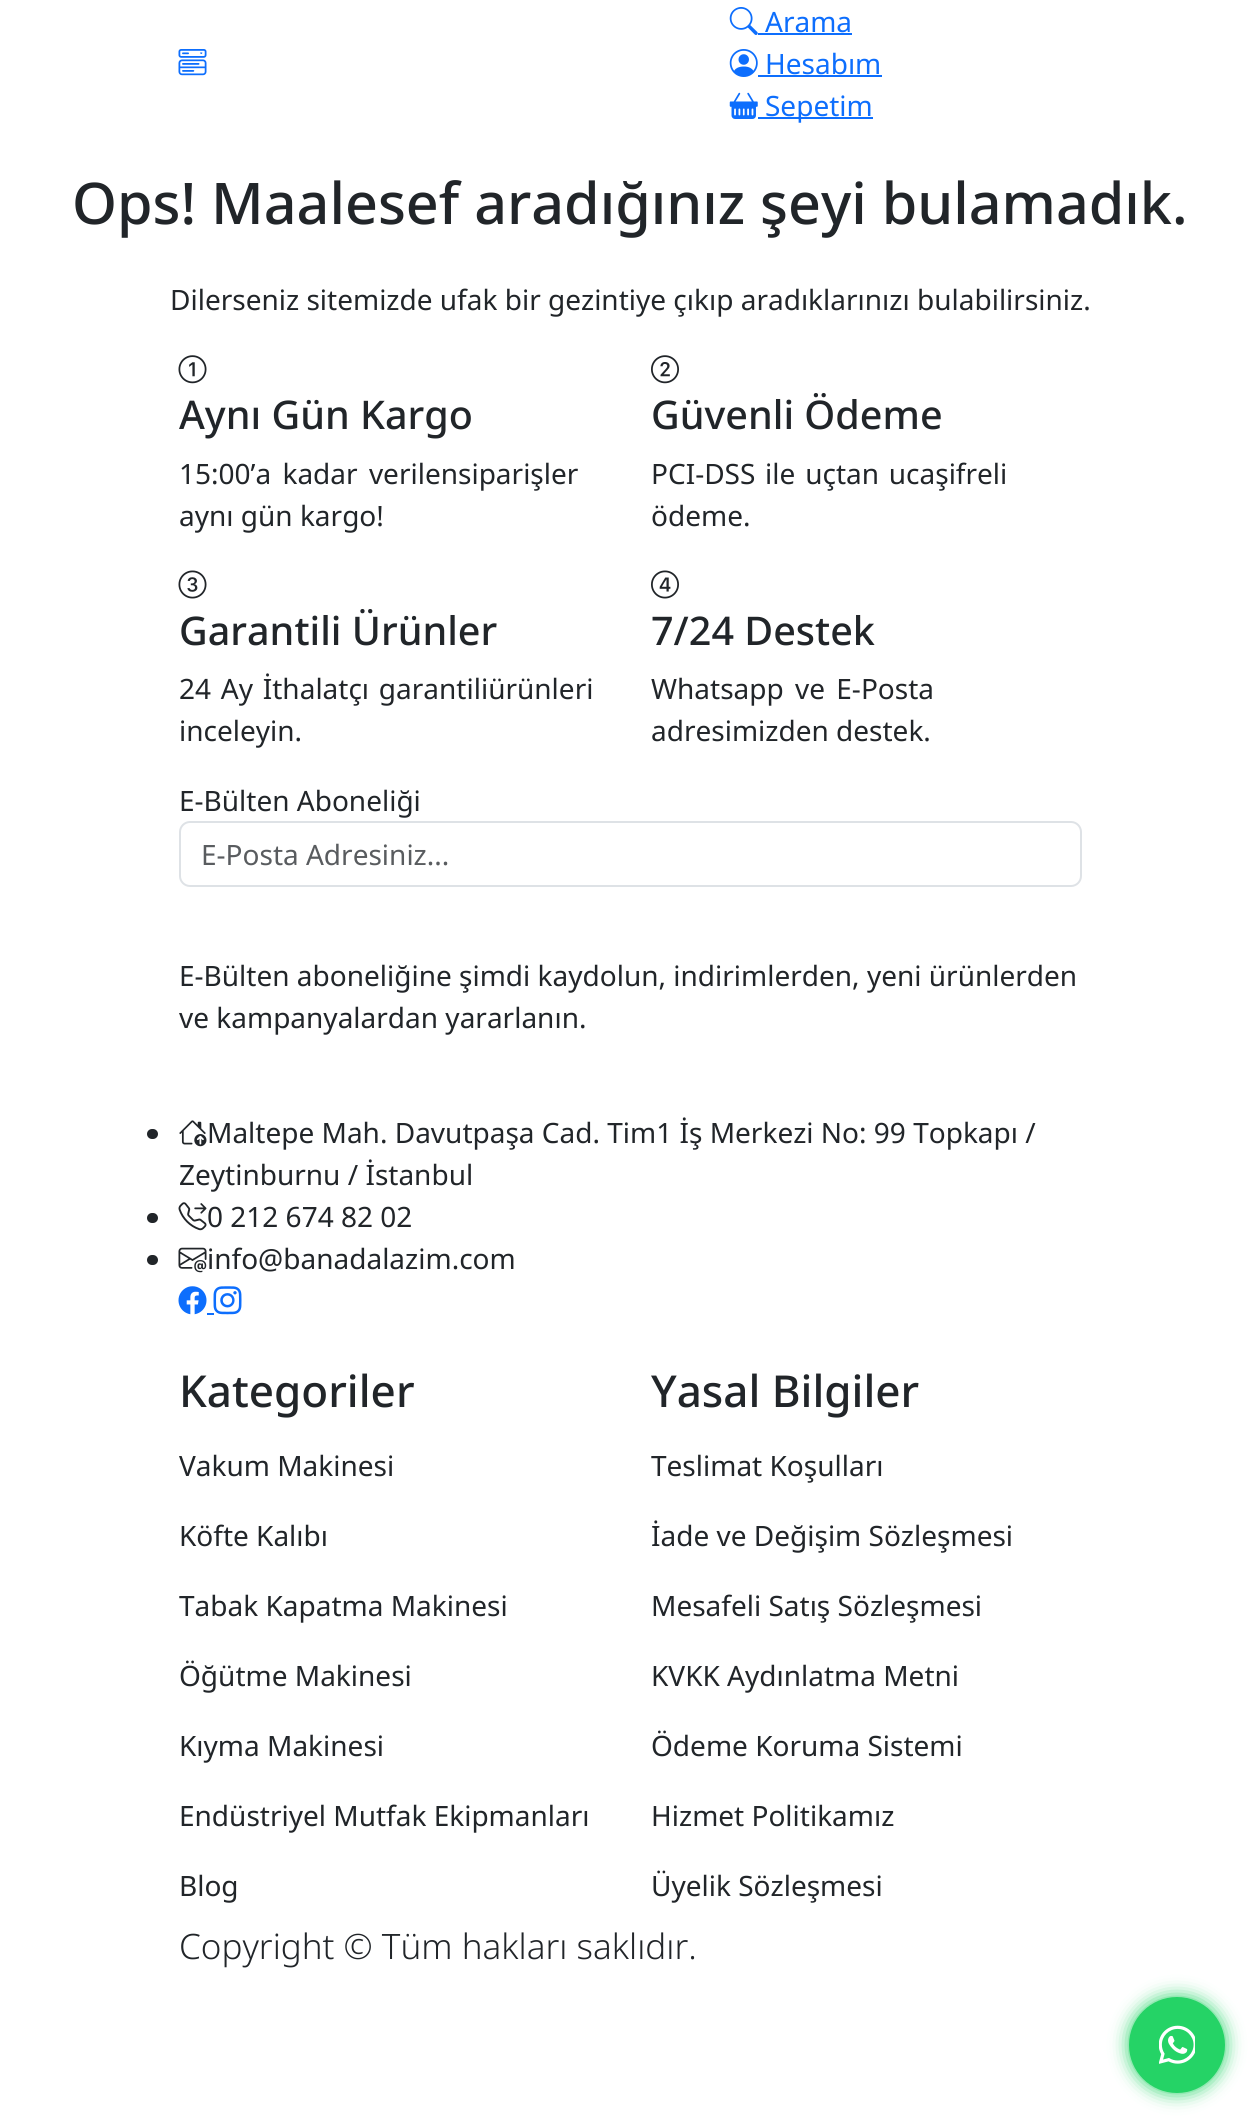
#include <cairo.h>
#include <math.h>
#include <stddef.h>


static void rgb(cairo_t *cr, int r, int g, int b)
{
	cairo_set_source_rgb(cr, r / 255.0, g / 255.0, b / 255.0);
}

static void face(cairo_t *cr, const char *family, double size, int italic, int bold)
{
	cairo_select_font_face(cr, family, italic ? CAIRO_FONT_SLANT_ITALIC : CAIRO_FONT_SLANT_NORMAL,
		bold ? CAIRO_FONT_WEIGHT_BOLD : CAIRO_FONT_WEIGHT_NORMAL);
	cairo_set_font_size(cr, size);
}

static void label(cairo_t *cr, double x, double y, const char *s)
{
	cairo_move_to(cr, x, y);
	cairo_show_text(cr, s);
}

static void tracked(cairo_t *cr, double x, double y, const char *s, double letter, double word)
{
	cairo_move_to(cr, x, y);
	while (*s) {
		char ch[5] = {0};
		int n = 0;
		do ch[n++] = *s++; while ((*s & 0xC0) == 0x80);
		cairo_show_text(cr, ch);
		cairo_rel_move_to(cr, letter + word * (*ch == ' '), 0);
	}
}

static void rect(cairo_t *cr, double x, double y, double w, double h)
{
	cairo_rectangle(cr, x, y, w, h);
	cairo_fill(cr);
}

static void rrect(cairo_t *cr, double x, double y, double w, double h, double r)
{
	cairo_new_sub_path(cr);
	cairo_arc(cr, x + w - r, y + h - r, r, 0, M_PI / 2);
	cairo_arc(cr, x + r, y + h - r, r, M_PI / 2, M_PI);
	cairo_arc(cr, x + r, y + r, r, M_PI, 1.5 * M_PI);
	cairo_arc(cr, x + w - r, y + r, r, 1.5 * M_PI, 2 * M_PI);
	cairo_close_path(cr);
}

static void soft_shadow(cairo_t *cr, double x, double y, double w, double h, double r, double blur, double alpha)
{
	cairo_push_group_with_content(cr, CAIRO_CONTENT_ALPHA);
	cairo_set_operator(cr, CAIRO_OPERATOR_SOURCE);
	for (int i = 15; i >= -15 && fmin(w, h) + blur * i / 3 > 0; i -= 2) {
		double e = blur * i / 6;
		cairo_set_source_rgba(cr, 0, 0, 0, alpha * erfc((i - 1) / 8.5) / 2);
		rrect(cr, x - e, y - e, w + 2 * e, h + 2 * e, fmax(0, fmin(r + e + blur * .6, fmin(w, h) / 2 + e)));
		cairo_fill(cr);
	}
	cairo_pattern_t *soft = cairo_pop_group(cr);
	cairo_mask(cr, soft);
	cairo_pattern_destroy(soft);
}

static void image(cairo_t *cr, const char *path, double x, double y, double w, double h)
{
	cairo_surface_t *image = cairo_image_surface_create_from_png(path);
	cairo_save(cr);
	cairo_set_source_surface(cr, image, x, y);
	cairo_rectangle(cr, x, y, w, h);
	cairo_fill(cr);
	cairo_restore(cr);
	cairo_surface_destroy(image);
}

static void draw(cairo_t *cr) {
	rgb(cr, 255, 255, 255);
	cairo_paint(cr);
	image(cr, "image0.png", 178, 49, 29, 27);
	image(cr, "image1.png", 729, 7, 29, 28);
	face(cr, "Noto Sans", 28, 0, 0);
	rgb(cr, 13, 110, 253);
	label(cr, 765, 32, "Arama");
	rect(cr, 758, 33, 94, 2);
	image(cr, "image2.png", 729, 49, 29, 28);
	label(cr, 765, 74, "Hesabım");
	rect(cr, 758, 75, 124, 2);
	image(cr, "image3.png", 729, 92, 29, 27);
	rect(cr, 758, 117, 115, 2);
	label(cr, 765, 116, "Sepetim");
	face(cr, "Noto Sans Medium", 57.4, 0, 0);
	rgb(cr, 33, 37, 41);
	label(cr, 72, 224, "Ops! Maalesef aradığınız şeyi bulamadık.");
	face(cr, "Noto Sans", 28, 0, 0);
	label(cr, 170, 310, "Dilerseniz sitemizde ufak bir gezintiye çıkıp aradıklarınızı bulabilirsiniz.");
	image(cr, "image4.png", 178, 355, 29, 29);
	face(cr, "Noto Sans Medium", 39.5, 0, 0);
	label(cr, 179, 429, "Aynı Gün Kargo");
	face(cr, "Noto Sans", 28, 0, 0);
	tracked(cr, 179, 484, "15:00’a kadar verilensiparişler", 0, 4);
	label(cr, 179, 526, "aynı gün kargo!");
	image(cr, "image5.png", 651, 355, 28, 29);
	face(cr, "Noto Sans Medium", 39.5, 0, 0);
	label(cr, 651, 429, "Güvenli Ödeme");
	face(cr, "Noto Sans", 28, 0, 0);
	tracked(cr, 651, 484, "PCI-DSS ile uçtan ucaşifreli", 0, 2.5);
	label(cr, 651, 526, "ödeme.");
	image(cr, "image6.png", 178, 570, 29, 29);
	face(cr, "Noto Sans Medium", 39.5, 0, 0);
	label(cr, 179, 645, "Garantili Ürünler");
	face(cr, "Noto Sans", 28, 0, 0);
	tracked(cr, 179, 699, "24 Ay İthalatçı garantiliürünleri", 0, 2.5);
	label(cr, 179, 741, "inceleyin.");
	image(cr, "image7.png", 651, 570, 28, 29);
	face(cr, "Noto Sans Medium", 39.5, 0, 0);
	label(cr, 651, 645, "7/24 Destek");
	face(cr, "Noto Sans", 28, 0, 0);
	tracked(cr, 651, 699, "Whatsapp ve E-Posta", 0, 4);
	label(cr, 651, 741, "adresimizden destek.");
	label(cr, 179, 811, "E-Bülten Aboneliği");
	rrect(cr, 180, 822, 901, 64, 10);
	rgb(cr, 222, 226, 230);
	cairo_stroke(cr);
	rgb(cr, 89, 92, 95);
	label(cr, 201, 865, "E-Posta Adresiniz...");
	rgb(cr, 33, 37, 41);
	label(cr, 179, 986, "E-Bülten aboneliğine şimdi kaydolun, indirimlerden, yeni ürünlerden");
	label(cr, 179, 1028, "ve kampanyalardan yararlanın.");
	rrect(cr, 147, 1129, 11, 10, 5);
	cairo_fill(cr);
	image(cr, "image8.png", 179, 1120, 28, 27);
	label(cr, 207, 1143, "Maltepe Mah. Davutpaşa Cad. Tim1 İş Merkezi No: 99 Topkapı /");
	label(cr, 179, 1185, "Zeytinburnu / İstanbul");
	rrect(cr, 147, 1213, 11, 10, 5);
	cairo_fill(cr);
	image(cr, "image9.png", 178, 1202, 29, 29);
	label(cr, 207, 1227, "0 212 674 82 02");
	rrect(cr, 147, 1255, 11, 10, 5);
	cairo_fill(cr);
	image(cr, "image10.png", 178, 1247, 29, 26);
	label(cr, 207, 1269, "info@banadalazim.com");
	image(cr, "image11.png", 178, 1286, 29, 29);
	rgb(cr, 13, 110, 253);
	rect(cr, 207, 1313, 7, 2);
	image(cr, "image12.png", 213, 1286, 29, 29);
	face(cr, "Noto Sans Medium", 44, 0, 0);
	rgb(cr, 33, 37, 41);
	label(cr, 179, 1407, "Kategoriler");
	face(cr, "Noto Sans", 28, 0, 0);
	label(cr, 179, 1476, "Vakum Makinesi");
	label(cr, 179, 1546, "Köfte Kalıbı");
	label(cr, 179, 1616, "Tabak Kapatma Makinesi");
	label(cr, 179, 1686, "Öğütme Makinesi");
	label(cr, 179, 1756, "Kıyma Makinesi");
	label(cr, 179, 1826, "Endüstriyel Mutfak Ekipmanları");
	label(cr, 179, 1896, "Blog");
	face(cr, "Noto Sans Medium", 44, 0, 0);
	label(cr, 651, 1407, "Yasal Bilgiler");
	face(cr, "Noto Sans", 28, 0, 0);
	label(cr, 651, 1476, "Teslimat Koşulları");
	label(cr, 651, 1546, "İade ve Değişim Sözleşmesi");
	label(cr, 651, 1616, "Mesafeli Satış Sözleşmesi");
	label(cr, 651, 1686, "KVKK Aydınlatma Metni");
	label(cr, 651, 1756, "Ödeme Koruma Sistemi");
	label(cr, 651, 1826, "Hizmet Politikamız");
	label(cr, 651, 1896, "Üyelik Sözleşmesi");
	face(cr, "Noto Sans Light", 35, 0, 0);
	label(cr, 179, 1959, "Copyright © Tüm hakları saklıdır.");
	rgb(cr, 37, 211, 102);
	soft_shadow(cr, 1129, 1997, 96, 96, 48, 9, 1);
	rgb(cr, 37, 211, 102);
	cairo_arc(cr, 1177, 2045, 48, 0, 2 * M_PI);
	cairo_fill(cr);
	image(cr, "image13.png", 1159, 2025, 36, 39);
}

int main(void) {
	cairo_surface_t *surface = cairo_image_surface_create(CAIRO_FORMAT_RGB24, 1259, 2127);
	cairo_t *cr = cairo_create(surface);
	cairo_font_options_t *options = cairo_font_options_create();
	cairo_font_options_set_hint_metrics(options, CAIRO_HINT_METRICS_OFF);
	cairo_font_options_set_hint_style(options, CAIRO_HINT_STYLE_NONE);
	cairo_set_font_options(cr, options);
	cairo_set_miter_limit(cr, 4);
	draw(cr);
	cairo_surface_write_to_png(surface, "render.png");
	cairo_font_options_destroy(options);
	cairo_destroy(cr);
	cairo_surface_destroy(surface);
	return 0;
}
